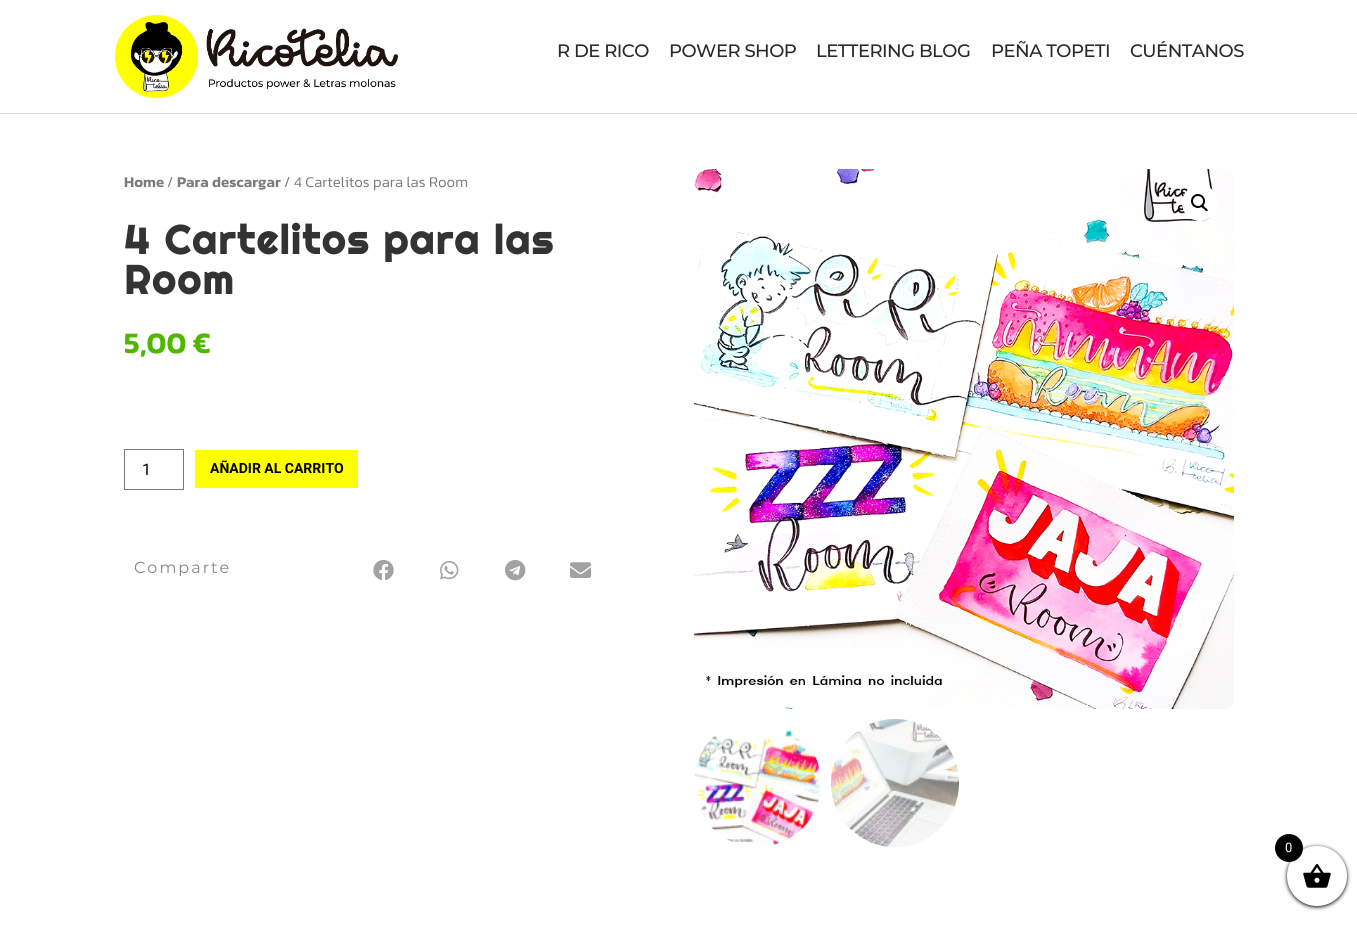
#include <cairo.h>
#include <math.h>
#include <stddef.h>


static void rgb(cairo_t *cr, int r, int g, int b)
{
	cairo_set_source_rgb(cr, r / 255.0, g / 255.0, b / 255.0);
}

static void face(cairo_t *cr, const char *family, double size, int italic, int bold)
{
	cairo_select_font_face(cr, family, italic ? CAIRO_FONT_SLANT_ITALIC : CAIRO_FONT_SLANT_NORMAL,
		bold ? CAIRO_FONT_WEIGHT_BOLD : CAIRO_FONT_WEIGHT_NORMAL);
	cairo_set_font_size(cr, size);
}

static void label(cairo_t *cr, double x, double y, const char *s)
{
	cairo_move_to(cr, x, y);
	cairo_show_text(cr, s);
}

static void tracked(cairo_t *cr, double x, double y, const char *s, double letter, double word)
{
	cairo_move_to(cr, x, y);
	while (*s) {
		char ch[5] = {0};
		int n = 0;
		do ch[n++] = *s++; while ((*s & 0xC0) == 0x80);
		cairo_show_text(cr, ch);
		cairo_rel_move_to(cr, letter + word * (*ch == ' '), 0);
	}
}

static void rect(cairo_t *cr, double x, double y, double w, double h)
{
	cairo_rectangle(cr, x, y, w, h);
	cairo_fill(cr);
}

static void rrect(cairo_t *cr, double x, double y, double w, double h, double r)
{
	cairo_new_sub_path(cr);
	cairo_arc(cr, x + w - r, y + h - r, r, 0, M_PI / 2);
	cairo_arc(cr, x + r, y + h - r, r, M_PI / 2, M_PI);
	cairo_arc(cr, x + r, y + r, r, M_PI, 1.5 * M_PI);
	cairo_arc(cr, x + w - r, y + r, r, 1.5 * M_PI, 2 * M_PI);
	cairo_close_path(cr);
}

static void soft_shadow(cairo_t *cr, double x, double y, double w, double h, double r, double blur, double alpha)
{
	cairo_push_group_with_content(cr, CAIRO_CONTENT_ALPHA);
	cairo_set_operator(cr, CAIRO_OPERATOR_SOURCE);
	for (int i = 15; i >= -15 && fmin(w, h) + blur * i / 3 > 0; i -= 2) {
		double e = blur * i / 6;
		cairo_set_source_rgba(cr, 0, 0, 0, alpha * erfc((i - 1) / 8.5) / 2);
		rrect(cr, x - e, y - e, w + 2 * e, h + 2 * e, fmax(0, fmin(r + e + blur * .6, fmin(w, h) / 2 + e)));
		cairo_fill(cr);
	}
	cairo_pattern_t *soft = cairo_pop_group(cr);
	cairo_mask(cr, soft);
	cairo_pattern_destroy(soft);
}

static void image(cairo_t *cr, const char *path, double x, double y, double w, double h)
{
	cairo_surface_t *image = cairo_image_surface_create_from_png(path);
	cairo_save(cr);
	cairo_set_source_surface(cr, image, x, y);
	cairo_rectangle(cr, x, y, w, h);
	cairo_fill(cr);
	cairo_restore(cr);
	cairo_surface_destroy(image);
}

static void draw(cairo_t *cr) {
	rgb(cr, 255, 255, 255);
	cairo_paint(cr);
	rgb(cr, 216, 216, 216);
	rect(cr, 0, 113, 1357, 1);
	image(cr, "image0.png", 114, 15, 284, 83);
	face(cr, "Montserrat Medium", 18, 0, 0);
	rgb(cr, 38, 42, 43);
	tracked(cr, 557, 57, "R DE RICO", -0.5, 0);
	tracked(cr, 669, 57, "POWER SHOP", -0.5, 0);
	tracked(cr, 816, 57, "LETTERING BLOG", -0.5, 0);
	tracked(cr, 991, 57, "PEÑA TOPETI", -0.5, 0);
	tracked(cr, 1130, 57, "CUÉNTANOS", -0.5, 0);
	face(cr, "Kanit SemiBold", 15, 0, 0);
	rgb(cr, 122, 122, 122);
	label(cr, 124, 187, "Home");
	face(cr, "Kanit Light", 15, 0, 0);
	label(cr, 167, 187, "/");
	face(cr, "Kanit SemiBold", 15, 0, 0);
	label(cr, 177, 187, "Para descargar");
	face(cr, "Kanit Light", 15, 0, 0);
	label(cr, 284, 187, "/ 4 Cartelitos para las Room");
	face(cr, "Righteous", 40, 0, 1);
	rgb(cr, 51, 51, 51);
	tracked(cr, 124, 254, "4 Cartelitos para las", 2, 0);
	tracked(cr, 124, 294, "Room", 2, 0);
	face(cr, "Kanit SemiBold", 30, 0, 0);
	rgb(cr, 80, 183, 0);
	label(cr, 124, 353, "5,00 €");
	cairo_rectangle(cr, 124.5, 449.5, 59, 40);
	rgb(cr, 122, 122, 122);
	cairo_set_line_width(cr, 1);
	cairo_stroke(cr);
	face(cr, "Roboto", 16, 0, 0);
	rgb(cr, 0, 0, 0);
	label(cr, 142, 475, "1");
	rgb(cr, 255, 255, 0);
	rect(cr, 195, 450, 163, 38);
	face(cr, "Roboto", 14, 0, 1);
	rgb(cr, 0, 0, 0);
	label(cr, 210, 473, "AÑADIR AL CARRITO");
	face(cr, "Montserrat", 16, 0, 0);
	rgb(cr, 134, 134, 134);
	tracked(cr, 134, 573, "Comparte", 2, 0);
	image(cr, "image1.png", 373, 560, 21, 21);
	image(cr, "image2.png", 440, 561, 19, 19);
	image(cr, "image3.png", 505, 560, 21, 21);
	image(cr, "image4.png", 570, 562, 21, 16);
	image(cr, "image5.png", 694, 169, 540, 540);
	rgb(cr, 255, 255, 255);
	cairo_arc(cr, 1200, 203, 18, 0, 2 * M_PI);
	cairo_fill(cr);
	cairo_arc(cr, 1198, 201, 6, 0, 2 * M_PI);
	rgb(cr, 0, 0, 0);
	cairo_set_line_width(cr, 2);
	cairo_stroke(cr);
	cairo_new_path(cr);
	cairo_move_to(cr, 1201.5, 205.5);
	cairo_curve_to(cr, 1203, 204, 1204.5, 207, 1205, 207.5);
	cairo_curve_to(cr, 1206, 208, 1208.5, 210, 1207.5, 211);
	cairo_curve_to(cr, 1206, 212, 1204.5, 209.5, 1204, 209);
	cairo_curve_to(cr, 1203, 208.5, 1200.5, 206.5, 1201.5, 205.5);
	cairo_close_path(cr);
	cairo_fill(cr);
	image(cr, "image6.png", 694, 730, 127, 115);
	image(cr, "image7.png", 831, 719, 128, 128);
	rgb(cr, 0, 0, 0);
	soft_shadow(cr, 1287, 847, 60, 60, 30, 2, 1);
	rgb(cr, 255, 255, 255);
	cairo_arc(cr, 1317, 876, 30, 0, 2 * M_PI);
	cairo_fill(cr);
	rgb(cr, 0, 0, 0);
	cairo_arc(cr, 1289, 848, 14, 0, 2 * M_PI);
	cairo_fill(cr);
	face(cr, "Roboto", 13, 0, 0);
	rgb(cr, 255, 255, 255);
	label(cr, 1285, 852, "0");
	image(cr, "image8.png", 1303, 864, 28, 24);
}

int main(void) {
	cairo_surface_t *surface = cairo_image_surface_create(CAIRO_FORMAT_RGB24, 1357, 928);
	cairo_t *cr = cairo_create(surface);
	cairo_font_options_t *options = cairo_font_options_create();
	cairo_font_options_set_hint_metrics(options, CAIRO_HINT_METRICS_OFF);
	cairo_font_options_set_hint_style(options, CAIRO_HINT_STYLE_NONE);
	cairo_set_font_options(cr, options);
	cairo_set_miter_limit(cr, 4);
	draw(cr);
	cairo_surface_write_to_png(surface, "render.png");
	cairo_font_options_destroy(options);
	cairo_destroy(cr);
	cairo_surface_destroy(surface);
	return 0;
}
